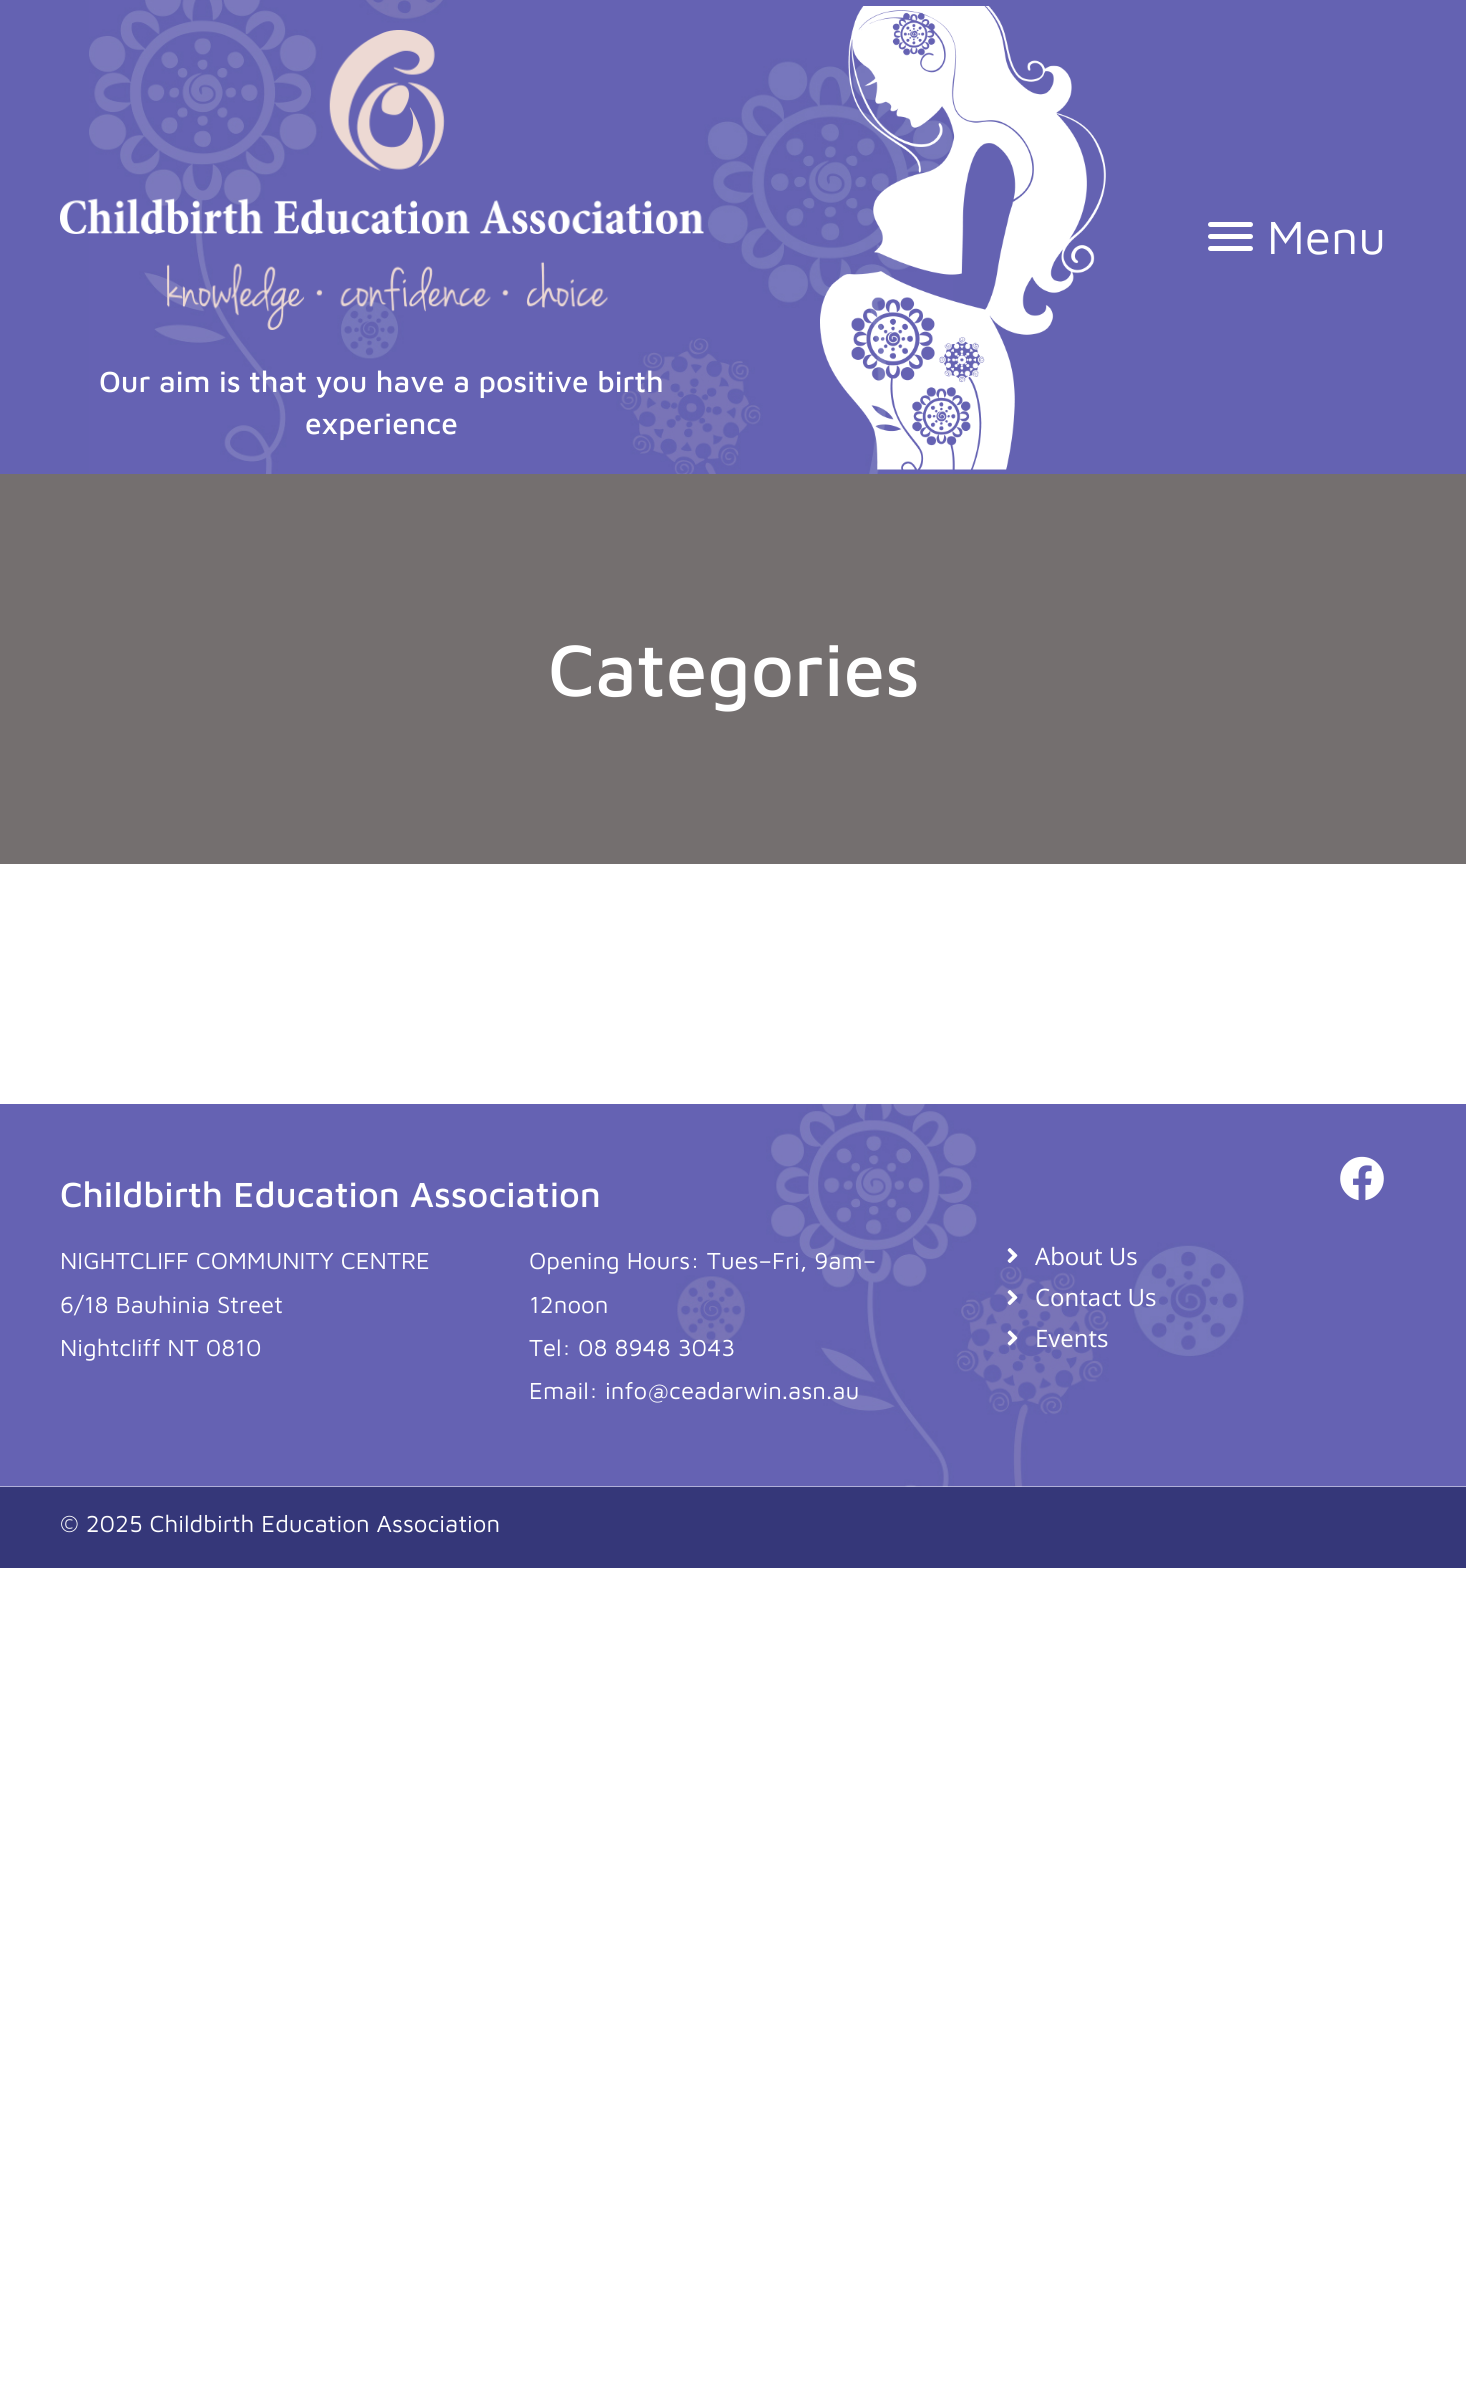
#include <cairo.h>
#include <math.h>
#include <stddef.h>


static void rgb(cairo_t *cr, int r, int g, int b)
{
	cairo_set_source_rgb(cr, r / 255.0, g / 255.0, b / 255.0);
}

static void face(cairo_t *cr, const char *family, double size, int italic, int bold)
{
	cairo_select_font_face(cr, family, italic ? CAIRO_FONT_SLANT_ITALIC : CAIRO_FONT_SLANT_NORMAL,
		bold ? CAIRO_FONT_WEIGHT_BOLD : CAIRO_FONT_WEIGHT_NORMAL);
	cairo_set_font_size(cr, size);
}

static void label(cairo_t *cr, double x, double y, const char *s)
{
	cairo_move_to(cr, x, y);
	cairo_show_text(cr, s);
}

static void rect(cairo_t *cr, double x, double y, double w, double h)
{
	cairo_rectangle(cr, x, y, w, h);
	cairo_fill(cr);
}

static void rrect(cairo_t *cr, double x, double y, double w, double h, double r)
{
	cairo_new_sub_path(cr);
	cairo_arc(cr, x + w - r, y + h - r, r, 0, M_PI / 2);
	cairo_arc(cr, x + r, y + h - r, r, M_PI / 2, M_PI);
	cairo_arc(cr, x + r, y + r, r, M_PI, 1.5 * M_PI);
	cairo_arc(cr, x + w - r, y + r, r, 1.5 * M_PI, 2 * M_PI);
	cairo_close_path(cr);
}

static void image(cairo_t *cr, const char *path, double x, double y, double w, double h)
{
	cairo_surface_t *image = cairo_image_surface_create_from_png(path);
	cairo_save(cr);
	cairo_set_source_surface(cr, image, x, y);
	cairo_rectangle(cr, x, y, w, h);
	cairo_fill(cr);
	cairo_restore(cr);
	cairo_surface_destroy(image);
}

static void draw(cairo_t *cr) {
	rgb(cr, 255, 255, 255);
	cairo_paint(cr);
	rgb(cr, 100, 98, 178);
	rect(cr, 0, 0, 1466, 474);
	image(cr, "image0.png", 89, 0, 864, 474);
	image(cr, "image1.png", 820, 6, 286, 464);
	rgb(cr, 255, 255, 255);
	rrect(cr, 1208, 234, 45, 5, 2.5);
	cairo_fill(cr);
	rrect(cr, 1208, 222, 45, 5, 2.5);
	cairo_fill(cr);
	rrect(cr, 1208, 246, 45, 5, 2.5);
	cairo_fill(cr);
	face(cr, "Maven Pro", 48, 0, 0);
	label(cr, 1267, 254, "Menu");
	image(cr, "image2.png", 60, 30, 644, 300);
	face(cr, "Maven Pro Medium", 30, 0, 0);
	label(cr, 99, 392, "Our aim is that you have a positive birth");
	label(cr, 305, 434, "experience");
	rgb(cr, 116, 111, 111);
	rect(cr, 0, 474, 1466, 390);
	face(cr, "Maven Pro Medium", 75, 0, 0);
	rgb(cr, 255, 255, 255);
	label(cr, 548, 696, "Categories");
	image(cr, "image3.png", 0, 1104, 1466, 383);
	face(cr, "Maven Pro Medium", 36, 0, 0);
	label(cr, 60, 1207, "Childbirth Education Association");
	image(cr, "image4.png", 1340, 1156, 44, 45);
	face(cr, "Maven Pro", 24, 0, 0);
	label(cr, 60, 1269, "NIGHTCLIFF COMMUNITY CENTRE");
	label(cr, 60, 1313, "6/18 Bauhinia Street");
	label(cr, 60, 1356, "Nightcliff NT 0810");
	label(cr, 529, 1269, "Opening Hours: Tues–Fri, 9am–");
	label(cr, 529, 1313, "12noon");
	label(cr, 529, 1356, "Tel: 08 8948 3043");
	label(cr, 529, 1399, "Email: info@ceadarwin.asn.au");
	image(cr, "image5.png", 1007, 1248, 11, 15);
	face(cr, "Open Sans", 24, 0, 0);
	label(cr, 1035, 1265, "About Us");
	image(cr, "image6.png", 1007, 1290, 11, 15);
	label(cr, 1035, 1306, "Contact Us");
	image(cr, "image7.png", 1007, 1330, 11, 16);
	label(cr, 1035, 1347, "Events");
	rgb(cr, 53, 55, 121);
	rect(cr, 0, 1487, 1466, 81);
	face(cr, "Maven Pro", 24, 0, 0);
	rgb(cr, 255, 255, 255);
	label(cr, 60, 1532, "© 2025 Childbirth Education Association");
}

int main(void) {
	cairo_surface_t *surface = cairo_image_surface_create(CAIRO_FORMAT_RGB24, 1466, 2396);
	cairo_t *cr = cairo_create(surface);
	cairo_font_options_t *options = cairo_font_options_create();
	cairo_font_options_set_hint_metrics(options, CAIRO_HINT_METRICS_OFF);
	cairo_font_options_set_hint_style(options, CAIRO_HINT_STYLE_NONE);
	cairo_set_font_options(cr, options);
	cairo_set_miter_limit(cr, 4);
	draw(cr);
	cairo_surface_write_to_png(surface, "render.png");
	cairo_font_options_destroy(options);
	cairo_destroy(cr);
	cairo_surface_destroy(surface);
	return 0;
}
